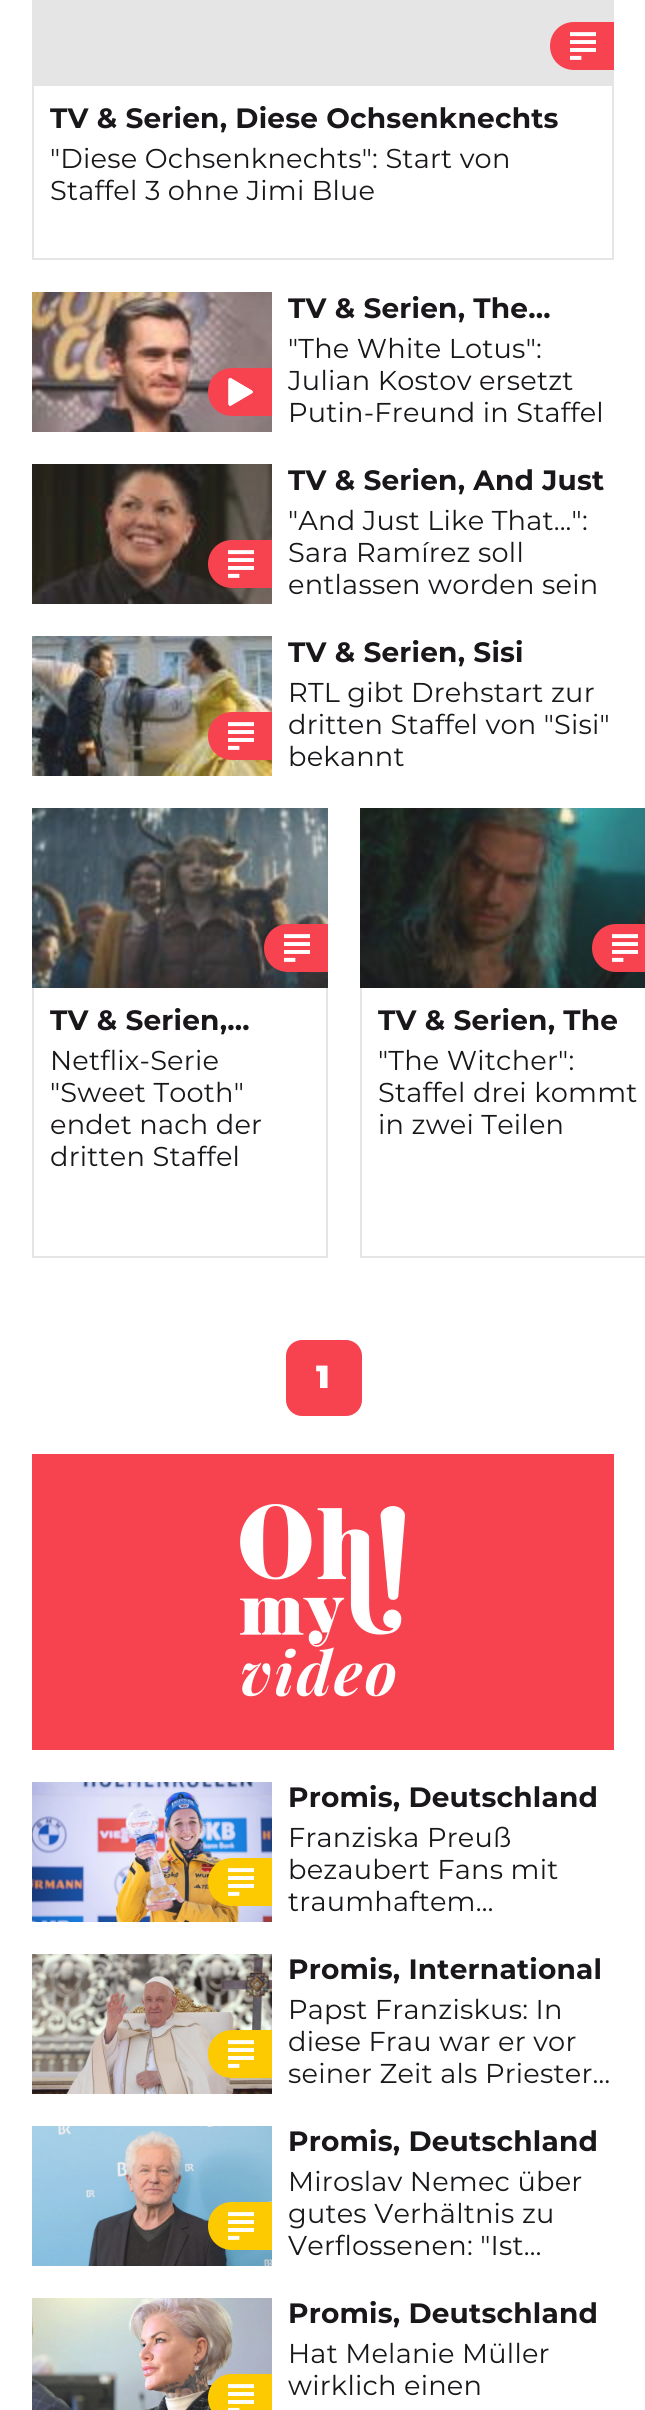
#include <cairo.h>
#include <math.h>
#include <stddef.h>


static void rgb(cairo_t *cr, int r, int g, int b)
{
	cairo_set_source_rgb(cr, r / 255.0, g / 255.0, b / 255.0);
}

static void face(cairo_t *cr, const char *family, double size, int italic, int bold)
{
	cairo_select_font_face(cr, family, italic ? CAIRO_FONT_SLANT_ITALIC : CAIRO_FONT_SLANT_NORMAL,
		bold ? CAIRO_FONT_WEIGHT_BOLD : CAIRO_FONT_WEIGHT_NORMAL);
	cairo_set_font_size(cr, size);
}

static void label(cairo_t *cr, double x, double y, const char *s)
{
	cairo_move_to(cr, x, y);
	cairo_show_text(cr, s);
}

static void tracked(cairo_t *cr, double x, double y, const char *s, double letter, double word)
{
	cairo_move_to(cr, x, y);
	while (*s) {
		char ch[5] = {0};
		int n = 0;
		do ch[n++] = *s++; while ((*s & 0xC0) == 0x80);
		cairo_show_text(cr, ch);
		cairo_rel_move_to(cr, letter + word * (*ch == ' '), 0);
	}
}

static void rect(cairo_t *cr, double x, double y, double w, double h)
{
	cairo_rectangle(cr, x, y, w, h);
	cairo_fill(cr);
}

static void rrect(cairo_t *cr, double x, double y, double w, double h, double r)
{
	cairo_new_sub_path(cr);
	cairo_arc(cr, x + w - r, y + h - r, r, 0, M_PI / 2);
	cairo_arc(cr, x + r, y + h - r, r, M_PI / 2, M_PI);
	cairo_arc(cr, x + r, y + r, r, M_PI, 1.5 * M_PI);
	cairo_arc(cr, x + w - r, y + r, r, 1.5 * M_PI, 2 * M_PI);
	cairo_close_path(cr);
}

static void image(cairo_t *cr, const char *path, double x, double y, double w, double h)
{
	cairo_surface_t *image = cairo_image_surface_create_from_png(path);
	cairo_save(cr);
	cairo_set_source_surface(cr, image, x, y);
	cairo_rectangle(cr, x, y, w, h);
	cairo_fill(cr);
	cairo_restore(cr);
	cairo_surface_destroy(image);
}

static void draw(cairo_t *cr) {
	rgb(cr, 255, 255, 255);
	cairo_paint(cr);
	rgb(cr, 229, 229, 229);
	rect(cr, 32, 0, 582, 86);
	rgb(cr, 247, 67, 79);
	cairo_new_path(cr);
	cairo_move_to(cr, 574, 22);
	cairo_line_to(cr, 614, 22);
	cairo_line_to(cr, 614, 70);
	cairo_line_to(cr, 574, 70);
	cairo_curve_to(cr, 560.5, 70, 550, 59.5, 550, 46);
	cairo_curve_to(cr, 550, 32.5, 560.5, 22, 574, 22);
	cairo_close_path(cr);
	cairo_fill(cr);
	image(cr, "image0.png", 570, 32, 26, 28);
	rgb(cr, 229, 229, 229);
	rect(cr, 612, 86, 2, 174);
	rect(cr, 32, 258, 582, 2);
	rect(cr, 32, 86, 2, 174);
	face(cr, "Montserrat", 28, 0, 1);
	rgb(cr, 26, 23, 27);
	tracked(cr, 50, 128, "TV & Serien, Diese Ochsenknechts", 0.2, 0);
	face(cr, "Montserrat", 27.25, 0, 0);
	tracked(cr, 50, 168, "\"Diese Ochsenknechts\": Start von", 0.2, 0);
	tracked(cr, 50, 200, "Staffel 3 ohne Jimi Blue", 0.2, 0);
	image(cr, "image1.png", 32, 292, 240, 140);
	rgb(cr, 247, 67, 79);
	cairo_new_path(cr);
	cairo_move_to(cr, 232, 368);
	cairo_line_to(cr, 272, 368);
	cairo_line_to(cr, 272, 416);
	cairo_line_to(cr, 232, 416);
	cairo_curve_to(cr, 218.5, 416, 208, 405.5, 208, 392);
	cairo_curve_to(cr, 208, 378.5, 218.5, 368, 232, 368);
	cairo_close_path(cr);
	cairo_fill(cr);
	image(cr, "image2.png", 228, 378, 25, 28);
	face(cr, "Montserrat", 28, 0, 1);
	rgb(cr, 26, 23, 27);
	tracked(cr, 288, 318, "TV & Serien, The…", 0.2, 0);
	face(cr, "Montserrat", 27.25, 0, 0);
	tracked(cr, 288, 358, "\"The White Lotus\":", 0.2, 0);
	tracked(cr, 288, 390, "Julian Kostov ersetzt", 0.2, 0);
	tracked(cr, 288, 422, "Putin-Freund in Staffel", 0.2, 0);
	image(cr, "image3.png", 32, 464, 240, 140);
	rgb(cr, 247, 67, 79);
	cairo_new_path(cr);
	cairo_move_to(cr, 232, 540);
	cairo_line_to(cr, 272, 540);
	cairo_line_to(cr, 272, 588);
	cairo_line_to(cr, 232, 588);
	cairo_curve_to(cr, 218.5, 588, 208, 577.5, 208, 564);
	cairo_curve_to(cr, 208, 550.5, 218.5, 540, 232, 540);
	cairo_close_path(cr);
	cairo_fill(cr);
	image(cr, "image0.png", 228, 550, 26, 28);
	face(cr, "Montserrat", 28, 0, 1);
	rgb(cr, 26, 23, 27);
	tracked(cr, 288, 490, "TV & Serien, And Just", 0.2, 0);
	face(cr, "Montserrat", 27.25, 0, 0);
	tracked(cr, 288, 530, "\"And Just Like That...\":", 0.2, 0);
	tracked(cr, 288, 562, "Sara Ramírez soll", 0.2, 0);
	tracked(cr, 288, 594, "entlassen worden sein", 0.2, 0);
	image(cr, "image4.png", 32, 636, 240, 140);
	rgb(cr, 247, 67, 79);
	cairo_new_path(cr);
	cairo_move_to(cr, 232, 712);
	cairo_line_to(cr, 272, 712);
	cairo_line_to(cr, 272, 760);
	cairo_line_to(cr, 232, 760);
	cairo_curve_to(cr, 218.5, 760, 208, 749.5, 208, 736);
	cairo_curve_to(cr, 208, 722.5, 218.5, 712, 232, 712);
	cairo_close_path(cr);
	cairo_fill(cr);
	image(cr, "image0.png", 228, 722, 26, 28);
	face(cr, "Montserrat", 28, 0, 1);
	rgb(cr, 26, 23, 27);
	tracked(cr, 288, 662, "TV & Serien, Sisi", 0.2, 0);
	face(cr, "Montserrat", 27.25, 0, 0);
	tracked(cr, 288, 702, "RTL gibt Drehstart zur", 0.2, 0);
	tracked(cr, 288, 734, "dritten Staffel von \"Sisi\"", 0.2, 0);
	tracked(cr, 288, 766, "bekannt", 0.2, 0);
	image(cr, "image5.png", 32, 808, 296, 180);
	rgb(cr, 247, 67, 79);
	cairo_new_path(cr);
	cairo_move_to(cr, 288, 924);
	cairo_line_to(cr, 328, 924);
	cairo_line_to(cr, 328, 972);
	cairo_line_to(cr, 288, 972);
	cairo_curve_to(cr, 274.5, 972, 264, 961.5, 264, 948);
	cairo_curve_to(cr, 264, 934.5, 274.5, 924, 288, 924);
	cairo_close_path(cr);
	cairo_fill(cr);
	image(cr, "image6.png", 284, 934, 26, 28);
	rgb(cr, 229, 229, 229);
	rect(cr, 326, 988, 2, 270);
	rect(cr, 32, 1256, 296, 2);
	rect(cr, 32, 988, 2, 270);
	face(cr, "Montserrat", 28, 0, 1);
	rgb(cr, 26, 23, 27);
	tracked(cr, 50, 1030, "TV & Serien,…", 0.2, 0);
	face(cr, "Montserrat", 27.25, 0, 0);
	tracked(cr, 50, 1070, "Netflix-Serie", 0.2, 0);
	tracked(cr, 50, 1102, "\"Sweet Tooth\"", 0.2, 0);
	tracked(cr, 50, 1134, "endet nach der", 0.2, 0);
	tracked(cr, 50, 1166, "dritten Staffel", 0.2, 0);
	image(cr, "image7.png", 360, 808, 285, 180);
	rgb(cr, 247, 67, 79);
	cairo_new_path(cr);
	cairo_move_to(cr, 616, 924);
	cairo_line_to(cr, 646, 924);
	cairo_line_to(cr, 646, 972);
	cairo_line_to(cr, 616, 972);
	cairo_curve_to(cr, 602.5, 972, 592, 961.5, 592, 948);
	cairo_curve_to(cr, 592, 934.5, 602.5, 924, 616, 924);
	cairo_close_path(cr);
	cairo_fill(cr);
	image(cr, "image6.png", 612, 934, 26, 28);
	rgb(cr, 229, 229, 229);
	rect(cr, 360, 1256, 285, 2);
	rect(cr, 360, 988, 2, 270);
	face(cr, "Montserrat", 28, 0, 1);
	rgb(cr, 26, 23, 27);
	tracked(cr, 378, 1030, "TV & Serien, The", 0.2, 0);
	face(cr, "Montserrat", 27.25, 0, 0);
	tracked(cr, 378, 1070, "\"The Witcher\":", 0.2, 0);
	tracked(cr, 378, 1102, "Staffel drei kommt", 0.2, 0);
	tracked(cr, 378, 1134, "in zwei Teilen", 0.2, 0);
	rgb(cr, 247, 67, 79);
	rrect(cr, 287, 1341, 74, 74, 15);
	cairo_fill_preserve(cr);
	cairo_stroke(cr);
	face(cr, "Montserrat Black", 32, 0, 0);
	rgb(cr, 255, 255, 255);
	label(cr, 316, 1388, "1");
	rgb(cr, 247, 67, 79);
	rect(cr, 32, 1454, 582, 296);
	image(cr, "image8.png", 240, 1504, 165, 193);
	image(cr, "image9.png", 32, 1782, 240, 140);
	rgb(cr, 253, 201, 0);
	cairo_new_path(cr);
	cairo_move_to(cr, 232, 1858);
	cairo_line_to(cr, 272, 1858);
	cairo_line_to(cr, 272, 1906);
	cairo_line_to(cr, 232, 1906);
	cairo_curve_to(cr, 218.5, 1906, 208, 1895.5, 208, 1882);
	cairo_curve_to(cr, 208, 1868.5, 218.5, 1858, 232, 1858);
	cairo_close_path(cr);
	cairo_fill(cr);
	image(cr, "image10.png", 228, 1868, 26, 28);
	face(cr, "Montserrat", 28, 0, 1);
	rgb(cr, 26, 23, 27);
	tracked(cr, 288, 1807, "Promis, Deutschland", 0.2, 0);
	face(cr, "Montserrat", 27.25, 0, 0);
	tracked(cr, 288, 1847, "Franziska Preuß", 0.2, 0);
	tracked(cr, 288, 1879, "bezaubert Fans mit", 0.2, 0);
	tracked(cr, 288, 1911, "traumhaftem…", 0.2, 0);
	image(cr, "image11.png", 32, 1954, 240, 140);
	rgb(cr, 253, 201, 0);
	cairo_new_path(cr);
	cairo_move_to(cr, 232, 2030);
	cairo_line_to(cr, 272, 2030);
	cairo_line_to(cr, 272, 2078);
	cairo_line_to(cr, 232, 2078);
	cairo_curve_to(cr, 218.5, 2078, 208, 2067.5, 208, 2054);
	cairo_curve_to(cr, 208, 2040.5, 218.5, 2030, 232, 2030);
	cairo_close_path(cr);
	cairo_fill(cr);
	image(cr, "image10.png", 228, 2040, 26, 28);
	face(cr, "Montserrat", 28, 0, 1);
	rgb(cr, 26, 23, 27);
	tracked(cr, 288, 1979, "Promis, International", 0.2, 0);
	face(cr, "Montserrat", 27.25, 0, 0);
	tracked(cr, 288, 2019, "Papst Franziskus: In", 0.2, 0);
	tracked(cr, 288, 2051, "diese Frau war er vor", 0.2, 0);
	tracked(cr, 288, 2083, "seiner Zeit als Priester…", 0.2, 0);
	image(cr, "image12.png", 32, 2126, 240, 140);
	rgb(cr, 253, 201, 0);
	cairo_new_path(cr);
	cairo_move_to(cr, 232, 2202);
	cairo_line_to(cr, 272, 2202);
	cairo_line_to(cr, 272, 2250);
	cairo_line_to(cr, 232, 2250);
	cairo_curve_to(cr, 218.5, 2250, 208, 2239.5, 208, 2226);
	cairo_curve_to(cr, 208, 2212.5, 218.5, 2202, 232, 2202);
	cairo_close_path(cr);
	cairo_fill(cr);
	image(cr, "image13.png", 228, 2212, 26, 28);
	face(cr, "Montserrat", 28, 0, 1);
	rgb(cr, 26, 23, 27);
	tracked(cr, 288, 2151, "Promis, Deutschland", 0.2, 0);
	face(cr, "Montserrat", 27.25, 0, 0);
	tracked(cr, 288, 2191, "Miroslav Nemec über", 0.2, 0);
	tracked(cr, 288, 2223, "gutes Verhältnis zu", 0.2, 0);
	tracked(cr, 288, 2255, "Verflossenen: \"Ist…", 0.2, 0);
	image(cr, "image14.png", 32, 2298, 240, 112);
	rgb(cr, 253, 201, 0);
	cairo_new_path(cr);
	cairo_move_to(cr, 232, 2374);
	cairo_line_to(cr, 272, 2374);
	cairo_line_to(cr, 272, 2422);
	cairo_line_to(cr, 232, 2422);
	cairo_curve_to(cr, 218.5, 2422, 208, 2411.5, 208, 2398);
	cairo_curve_to(cr, 208, 2384.5, 218.5, 2374, 232, 2374);
	cairo_close_path(cr);
	cairo_fill(cr);
	image(cr, "image15.png", 228, 2384, 26, 26);
	face(cr, "Montserrat", 28, 0, 1);
	rgb(cr, 26, 23, 27);
	tracked(cr, 288, 2323, "Promis, Deutschland", 0.2, 0);
	face(cr, "Montserrat", 27.25, 0, 0);
	tracked(cr, 288, 2363, "Hat Melanie Müller", 0.2, 0);
	tracked(cr, 288, 2395, "wirklich einen", 0.2, 0);
}

int main(void) {
	cairo_surface_t *surface = cairo_image_surface_create(CAIRO_FORMAT_RGB24, 645, 2410);
	cairo_t *cr = cairo_create(surface);
	cairo_font_options_t *options = cairo_font_options_create();
	cairo_font_options_set_hint_metrics(options, CAIRO_HINT_METRICS_OFF);
	cairo_font_options_set_hint_style(options, CAIRO_HINT_STYLE_NONE);
	cairo_set_font_options(cr, options);
	cairo_set_miter_limit(cr, 4);
	draw(cr);
	cairo_surface_write_to_png(surface, "render.png");
	cairo_font_options_destroy(options);
	cairo_destroy(cr);
	cairo_surface_destroy(surface);
	return 0;
}
